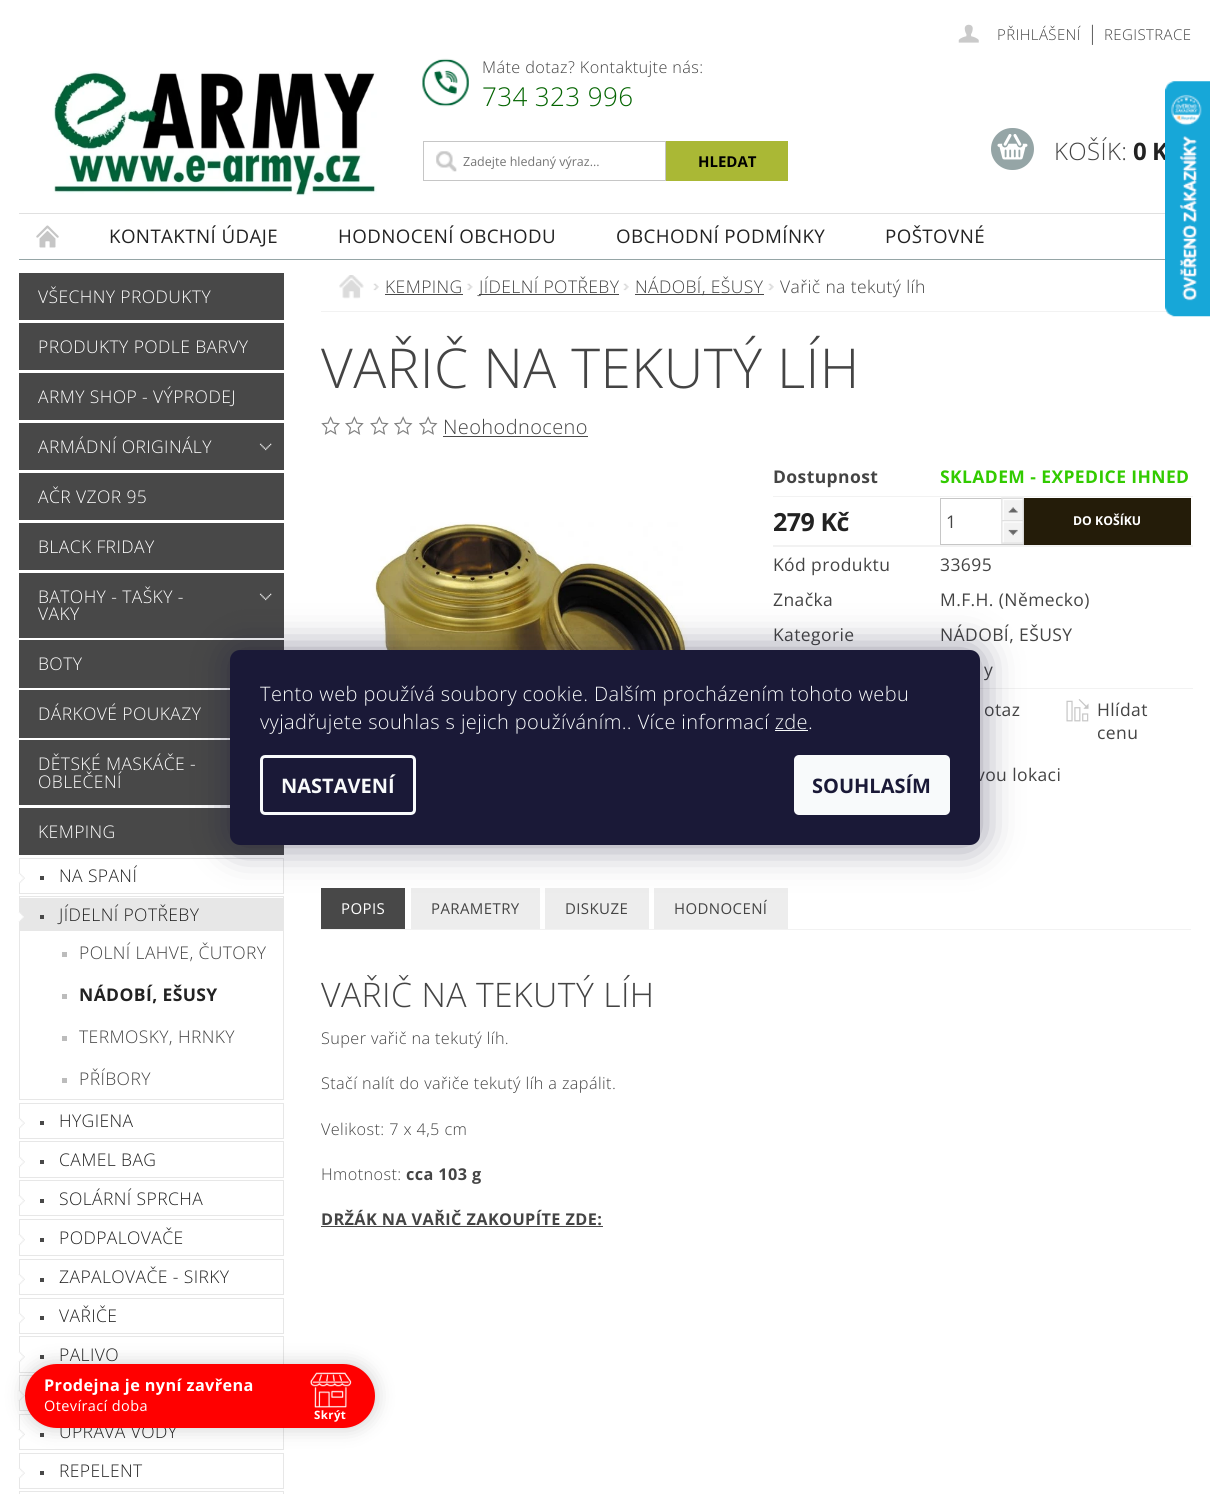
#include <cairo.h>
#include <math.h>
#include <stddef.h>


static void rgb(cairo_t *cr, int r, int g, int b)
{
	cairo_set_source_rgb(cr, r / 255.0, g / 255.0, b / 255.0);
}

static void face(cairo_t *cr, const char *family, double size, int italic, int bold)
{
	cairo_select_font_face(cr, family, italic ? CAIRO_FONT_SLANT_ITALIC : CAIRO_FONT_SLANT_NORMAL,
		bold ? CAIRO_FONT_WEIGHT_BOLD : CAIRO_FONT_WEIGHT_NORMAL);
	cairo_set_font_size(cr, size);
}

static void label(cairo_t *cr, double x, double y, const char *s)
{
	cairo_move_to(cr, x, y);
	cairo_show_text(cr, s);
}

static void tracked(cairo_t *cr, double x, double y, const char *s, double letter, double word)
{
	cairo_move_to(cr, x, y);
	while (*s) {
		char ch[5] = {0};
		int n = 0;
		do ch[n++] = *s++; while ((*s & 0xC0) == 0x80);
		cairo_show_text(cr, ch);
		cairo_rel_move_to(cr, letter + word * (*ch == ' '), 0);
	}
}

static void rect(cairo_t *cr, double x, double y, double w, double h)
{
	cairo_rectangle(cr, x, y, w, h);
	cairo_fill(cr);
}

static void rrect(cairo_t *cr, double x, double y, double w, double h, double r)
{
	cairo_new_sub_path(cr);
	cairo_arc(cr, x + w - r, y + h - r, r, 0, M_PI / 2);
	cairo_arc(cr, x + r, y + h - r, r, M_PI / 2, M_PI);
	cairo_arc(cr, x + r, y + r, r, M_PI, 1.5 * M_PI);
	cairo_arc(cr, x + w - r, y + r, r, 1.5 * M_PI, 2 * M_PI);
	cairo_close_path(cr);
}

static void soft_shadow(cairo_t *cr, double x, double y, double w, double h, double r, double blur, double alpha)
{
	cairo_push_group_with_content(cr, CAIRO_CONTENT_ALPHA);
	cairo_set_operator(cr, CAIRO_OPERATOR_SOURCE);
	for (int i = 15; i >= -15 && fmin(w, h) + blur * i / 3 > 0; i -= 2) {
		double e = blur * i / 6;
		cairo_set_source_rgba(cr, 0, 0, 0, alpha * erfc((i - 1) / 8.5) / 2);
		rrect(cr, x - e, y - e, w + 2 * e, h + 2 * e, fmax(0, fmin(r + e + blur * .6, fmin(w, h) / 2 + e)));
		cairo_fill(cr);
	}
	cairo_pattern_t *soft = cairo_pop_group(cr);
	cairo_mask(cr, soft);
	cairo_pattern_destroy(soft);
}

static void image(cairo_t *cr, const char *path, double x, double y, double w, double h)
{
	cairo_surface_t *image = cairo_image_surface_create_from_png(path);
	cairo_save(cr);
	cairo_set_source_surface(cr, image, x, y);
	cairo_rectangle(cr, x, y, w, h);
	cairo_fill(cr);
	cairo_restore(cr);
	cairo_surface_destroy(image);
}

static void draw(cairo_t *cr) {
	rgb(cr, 255, 255, 255);
	cairo_paint(cr);
	rgb(cr, 149, 165, 166);
	rect(cr, 19, 259, 1146, 1);
	image(cr, "image0.png", 53, 71, 324, 125);
	image(cr, "image1.png", 422, 58, 47, 49);
	face(cr, "Open Sans Light", 16.25, 0, 0);
	rgb(cr, 68, 68, 68);
	tracked(cr, 482, 73, "Máte dotaz? Kontaktujte nás:", 0.4, 0);
	face(cr, "Open Sans Light", 26, 0, 0);
	rgb(cr, 3, 100, 0);
	tracked(cr, 482, 106, "734 323 996", 0.4, 0);
	image(cr, "image2.png", 436, 151, 21, 21);
	cairo_rectangle(cr, 423.5, 141.5, 242, 39);
	rgb(cr, 198, 198, 198);
	cairo_set_line_width(cr, 1);
	cairo_stroke(cr);
	face(cr, "Open Sans", 12.5, 0, 0);
	rgb(cr, 117, 117, 117);
	label(cr, 463, 166, "Zadejte hledaný výraz...");
	rgb(cr, 170, 184, 53);
	rect(cr, 666, 141, 122, 40);
	face(cr, "Open Sans", 15, 0, 1);
	rgb(cr, 0, 0, 0);
	label(cr, 698, 167, "HLEDAT");
	image(cr, "image3.png", 958, 24, 21, 19);
	face(cr, "Open Sans Light", 15, 0, 0);
	rgb(cr, 68, 68, 68);
	tracked(cr, 997, 40, "PŘIHLÁŠENÍ", 0.4, 0);
	face(cr, "Open Sans Light", 20, 0, 0);
	tracked(cr, 1087, 40, "|", 0.4, 0);
	face(cr, "Open Sans Light", 15, 0, 0);
	tracked(cr, 1104, 40, "REGISTRACE", 0.4, 0);
	rgb(cr, 149, 165, 166);
	rrect(cr, 991, 128, 43, 42, 21);
	cairo_fill(cr);
	image(cr, "image4.png", 997, 134, 31, 26);
	face(cr, "Open Sans Light", 24, 0, 0);
	rgb(cr, 68, 68, 68);
	tracked(cr, 1054, 160, "KOŠÍK:", 0.4, 0);
	face(cr, "Open Sans", 24, 0, 1);
	rgb(cr, 34, 34, 34);
	tracked(cr, 1133, 160, "0 K", -0.5, 0);
	rgb(cr, 224, 224, 224);
	rect(cr, 19, 213, 1146, 1);
	image(cr, "image5.png", 36, 225, 23, 23);
	face(cr, "Open Sans", 18.75, 0, 0);
	rgb(cr, 34, 34, 34);
	tracked(cr, 109, 243, "KONTAKTNÍ ÚDAJE", 0.4, 0);
	tracked(cr, 338, 243, "HODNOCENÍ OBCHODU", 0.4, 0);
	tracked(cr, 616, 243, "OBCHODNÍ PODMÍNKY", 0.4, 0);
	tracked(cr, 885, 243, "POŠTOVNÉ", 0.4, 0);
	rgb(cr, 72, 72, 72);
	rect(cr, 19, 273, 265, 47);
	face(cr, "Open Sans Light", 17.5, 0, 0);
	rgb(cr, 255, 255, 255);
	tracked(cr, 38, 303, "VŠECHNY PRODUKTY", 0.4, 0);
	rgb(cr, 72, 72, 72);
	rect(cr, 19, 323, 265, 47);
	rgb(cr, 255, 255, 255);
	tracked(cr, 38, 353, "PRODUKTY PODLE BARVY", 0.4, 0);
	rgb(cr, 72, 72, 72);
	rect(cr, 19, 373, 265, 47);
	rgb(cr, 255, 255, 255);
	tracked(cr, 38, 403, "ARMY SHOP - VÝPRODEJ", 0.4, 0);
	rgb(cr, 72, 72, 72);
	rect(cr, 19, 423, 265, 47);
	image(cr, "image6.png", 259, 443, 13, 8);
	rgb(cr, 255, 255, 255);
	tracked(cr, 38, 453, "ARMÁDNÍ ORIGINÁLY", 0.4, 0);
	rgb(cr, 72, 72, 72);
	rect(cr, 19, 473, 265, 47);
	rgb(cr, 255, 255, 255);
	tracked(cr, 38, 503, "AČR VZOR 95", 0.4, 0);
	rgb(cr, 72, 72, 72);
	rect(cr, 19, 523, 265, 47);
	rgb(cr, 255, 255, 255);
	tracked(cr, 38, 553, "BLACK FRIDAY", 0.4, 0);
	rgb(cr, 72, 72, 72);
	rect(cr, 19, 573, 265, 65);
	image(cr, "image7.png", 259, 593, 13, 8);
	rgb(cr, 255, 255, 255);
	tracked(cr, 38, 603, "BATOHY - TAŠKY -", 0.4, 0);
	tracked(cr, 38, 620, "VAKY", 0.4, 0);
	rgb(cr, 72, 72, 72);
	rect(cr, 19, 640, 265, 48);
	rgb(cr, 255, 255, 255);
	tracked(cr, 38, 670, "BOTY", 0.4, 0);
	rgb(cr, 72, 72, 72);
	rect(cr, 19, 690, 211, 48);
	rgb(cr, 255, 255, 255);
	tracked(cr, 38, 720, "DÁRKOVÉ POUKAZY", 0.4, 0);
	rgb(cr, 72, 72, 72);
	rect(cr, 19, 740, 211, 65);
	rgb(cr, 255, 255, 255);
	tracked(cr, 38, 770, "DĚTSKÉ MASKÁČE -", 0.4, 0);
	tracked(cr, 38, 788, "OBLEČENÍ", 0.4, 0);
	rgb(cr, 72, 72, 72);
	rect(cr, 19, 808, 265, 47);
	rgb(cr, 255, 255, 255);
	tracked(cr, 38, 838, "KEMPING", 0.4, 0);
	cairo_rectangle(cr, 19.5, 858.5, 264, 35);
	rgb(cr, 231, 231, 231);
	cairo_stroke(cr);
	image(cr, "image8.png", 18, 873, 7, 10);
	rgb(cr, 72, 72, 72);
	rect(cr, 40, 876, 4, 4);
	rgb(cr, 34, 34, 34);
	tracked(cr, 59, 882, "NA SPANÍ", 0.4, 0);
	cairo_rectangle(cr, 19.5, 896.5, 264, 203);
	rgb(cr, 231, 231, 231);
	cairo_stroke(cr);
	rect(cr, 20, 898, 263, 33);
	image(cr, "image9.png", 18, 912, 6, 10);
	rgb(cr, 72, 72, 72);
	rect(cr, 40, 915, 4, 4);
	rgb(cr, 34, 34, 34);
	tracked(cr, 59, 921, "JÍDELNÍ POTŘEBY", 0.4, 0);
	rgb(cr, 188, 188, 188);
	rect(cr, 62, 952, 5, 5);
	rgb(cr, 68, 68, 68);
	tracked(cr, 79, 959, "POLNÍ LAHVE, ČUTORY", 0.4, 0);
	rgb(cr, 188, 188, 188);
	rect(cr, 62, 994, 5, 5);
	face(cr, "Open Sans", 17.5, 0, 1);
	rgb(cr, 34, 34, 34);
	tracked(cr, 79, 1001, "NÁDOBÍ, EŠUSY", 0.4, 0);
	rgb(cr, 188, 188, 188);
	rect(cr, 62, 1036, 5, 5);
	face(cr, "Open Sans Light", 17.5, 0, 0);
	rgb(cr, 68, 68, 68);
	tracked(cr, 79, 1043, "TERMOSKY, HRNKY", 0.4, 0);
	rgb(cr, 188, 188, 188);
	rect(cr, 62, 1078, 5, 5);
	rgb(cr, 68, 68, 68);
	tracked(cr, 79, 1085, "PŘÍBORY", 0.4, 0);
	cairo_rectangle(cr, 19.5, 1103.5, 264, 35);
	rgb(cr, 231, 231, 231);
	cairo_stroke(cr);
	image(cr, "image8.png", 18, 1118, 7, 10);
	rgb(cr, 72, 72, 72);
	rect(cr, 40, 1121, 4, 4);
	rgb(cr, 34, 34, 34);
	tracked(cr, 59, 1127, "HYGIENA", 0.4, 0);
	cairo_rectangle(cr, 19.5, 1141.5, 264, 36);
	rgb(cr, 231, 231, 231);
	cairo_stroke(cr);
	image(cr, "image10.png", 18, 1157, 7, 10);
	rgb(cr, 72, 72, 72);
	rect(cr, 40, 1160, 4, 4);
	rgb(cr, 34, 34, 34);
	tracked(cr, 59, 1166, "CAMEL BAG", 0.4, 0);
	cairo_rectangle(cr, 19.5, 1180.5, 264, 35);
	rgb(cr, 231, 231, 231);
	cairo_stroke(cr);
	image(cr, "image11.png", 18, 1195, 7, 11);
	rgb(cr, 72, 72, 72);
	rect(cr, 40, 1199, 4, 4);
	rgb(cr, 34, 34, 34);
	tracked(cr, 59, 1205, "SOLÁRNÍ SPRCHA", 0.4, 0);
	cairo_rectangle(cr, 19.5, 1219.5, 264, 36);
	rgb(cr, 231, 231, 231);
	cairo_stroke(cr);
	image(cr, "image12.png", 18, 1234, 7, 11);
	rgb(cr, 72, 72, 72);
	rect(cr, 40, 1238, 4, 4);
	rgb(cr, 34, 34, 34);
	tracked(cr, 59, 1244, "PODPALOVAČE", 0.4, 0);
	cairo_rectangle(cr, 19.5, 1259.5, 264, 35);
	rgb(cr, 231, 231, 231);
	cairo_stroke(cr);
	image(cr, "image13.png", 18, 1274, 7, 11);
	rgb(cr, 72, 72, 72);
	rect(cr, 40, 1278, 4, 4);
	rgb(cr, 34, 34, 34);
	tracked(cr, 59, 1283, "ZAPALOVAČE - SIRKY", 0.4, 0);
	cairo_rectangle(cr, 19.5, 1298.5, 264, 35);
	rgb(cr, 231, 231, 231);
	cairo_stroke(cr);
	image(cr, "image8.png", 18, 1313, 7, 10);
	rgb(cr, 72, 72, 72);
	rect(cr, 40, 1316, 4, 4);
	rgb(cr, 34, 34, 34);
	tracked(cr, 59, 1322, "VAŘIČE", 0.4, 0);
	cairo_rectangle(cr, 19.5, 1336.5, 264, 36);
	rgb(cr, 231, 231, 231);
	cairo_stroke(cr);
	image(cr, "image10.png", 18, 1352, 7, 10);
	rgb(cr, 72, 72, 72);
	rect(cr, 40, 1355, 4, 4);
	rgb(cr, 34, 34, 34);
	tracked(cr, 59, 1361, "PALIVO", 0.4, 0);
	cairo_rectangle(cr, 19.5, 1375.5, 264, 35);
	rgb(cr, 231, 231, 231);
	cairo_stroke(cr);
	image(cr, "image11.png", 18, 1390, 7, 11);
	cairo_rectangle(cr, 19.5, 1414.5, 264, 35);
	cairo_stroke(cr);
	image(cr, "image13.png", 18, 1429, 7, 11);
	rgb(cr, 72, 72, 72);
	rect(cr, 40, 1433, 4, 4);
	rgb(cr, 34, 34, 34);
	tracked(cr, 59, 1438, "ÚPRAVA VODY", 0.4, 0);
	cairo_rectangle(cr, 19.5, 1453.5, 264, 35);
	rgb(cr, 231, 231, 231);
	cairo_stroke(cr);
	image(cr, "image8.png", 18, 1468, 7, 10);
	rgb(cr, 72, 72, 72);
	rect(cr, 40, 1471, 4, 4);
	rgb(cr, 34, 34, 34);
	tracked(cr, 59, 1477, "REPELENT", 0.4, 0);
	cairo_rectangle(cr, 19.5, 1491.5, 264, 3);
	rgb(cr, 231, 231, 231);
	cairo_stroke(cr);
	rgb(cr, 242, 242, 242);
	rect(cr, 321, 311, 847, 1);
	image(cr, "image14.png", 339, 275, 25, 24);
	image(cr, "image15.png", 373, 283, 6, 8);
	rgb(cr, 68, 68, 68);
	tracked(cr, 385, 293, "KEMPING", 0.4, 0);
	rgb(cr, 72, 72, 72);
	rect(cr, 385, 294, 78, 1);
	image(cr, "image16.png", 467, 283, 6, 8);
	rect(cr, 479, 294, 140, 1);
	rgb(cr, 68, 68, 68);
	tracked(cr, 479, 293, "JÍDELNÍ POTŘEBY", 0.4, 0);
	image(cr, "image17.png", 623, 283, 6, 8);
	rgb(cr, 72, 72, 72);
	rect(cr, 635, 294, 129, 1);
	rgb(cr, 68, 68, 68);
	tracked(cr, 635, 293, "NÁDOBÍ, EŠUSY", 0.4, 0);
	image(cr, "image15.png", 768, 283, 6, 8);
	tracked(cr, 780, 293, "Vařič na tekutý líh", 0.4, 0);
	face(cr, "Open Sans Light", 55, 0, 0);
	tracked(cr, 321, 388, "VAŘIČ NA TEKUTÝ LÍH", 0.4, 0);
	image(cr, "image18.png", 321, 416, 19, 19);
	image(cr, "image19.png", 345, 416, 19, 19);
	image(cr, "image19.png", 370, 416, 19, 19);
	image(cr, "image20.png", 394, 416, 19, 19);
	image(cr, "image20.png", 419, 416, 19, 19);
	face(cr, "Open Sans Light", 20, 0, 0);
	tracked(cr, 443, 434, "Neohodnoceno", 0.4, 0);
	rgb(cr, 72, 72, 72);
	rect(cr, 443, 436, 145, 1);
	image(cr, "image21.png", 372, 522, 316, 128);
	rgb(cr, 242, 242, 242);
	rect(cr, 773, 496, 420, 1);
	face(cr, "Open Sans", 17.5, 0, 1);
	rgb(cr, 68, 68, 68);
	tracked(cr, 773, 483, "Dostupnost", 0.4, 0);
	rgb(cr, 50, 203, 0);
	tracked(cr, 940, 483, "SKLADEM - EXPEDICE IHNED", 0.4, 0);
	rgb(cr, 242, 242, 242);
	rect(cr, 773, 545, 420, 2);
	face(cr, "Open Sans", 25, 0, 1);
	rgb(cr, 34, 34, 34);
	tracked(cr, 773, 531, "279 Kč", -0.5, 0);
	cairo_rectangle(cr, 940.5, 498.5, 83, 46);
	rgb(cr, 198, 198, 198);
	cairo_stroke(cr);
	image(cr, "image22.png", 1001, 497, 23, 23);
	face(cr, "Open Sans", 17.5, 0, 0);
	rgb(cr, 68, 68, 68);
	label(cr, 946, 528, "1");
	image(cr, "image23.png", 1001, 520, 23, 24);
	rgb(cr, 36, 28, 9);
	rect(cr, 1024, 498, 167, 47);
	face(cr, "Open Sans", 12.25, 0, 1);
	rgb(cr, 255, 255, 255);
	label(cr, 1073, 525, "DO KOŠÍKU");
	face(cr, "Open Sans", 17.5, 0, 0);
	rgb(cr, 68, 68, 68);
	tracked(cr, 773, 571, "Kód produktu", 0.4, 0);
	tracked(cr, 940, 571, "33695", 0.4, 0);
	tracked(cr, 773, 606, "Značka", 0.4, 0);
	tracked(cr, 940, 606, "M.F.H. (Německo)", 0.4, 0);
	tracked(cr, 773, 641, "Kategorie", 0.4, 0);
	tracked(cr, 940, 641, "NÁDOBÍ, EŠUSY", 0.4, 0);
	rgb(cr, 242, 242, 242);
	rect(cr, 980, 688, 213, 1);
	rgb(cr, 68, 68, 68);
	tracked(cr, 984, 676, "y", 0.4, 0);
	tracked(cr, 984, 716, "otaz", 0.4, 0);
	image(cr, "image24.png", 1066, 699, 23, 23);
	tracked(cr, 1097, 716, "Hlídat", 0.4, 0);
	tracked(cr, 1097, 739, "cenu", 0.4, 0);
	tracked(cr, 976, 781, "vou lokaci", 0.4, 0);
	rgb(cr, 242, 242, 242);
	rect(cr, 321, 929, 870, 1);
	rgb(cr, 72, 72, 72);
	rect(cr, 321, 888, 84, 41);
	face(cr, "Open Sans", 15, 0, 0);
	rgb(cr, 255, 255, 255);
	tracked(cr, 341, 914, "POPIS", 0.4, 0);
	rgb(cr, 237, 237, 237);
	rect(cr, 411, 888, 129, 41);
	rgb(cr, 68, 68, 68);
	tracked(cr, 431, 914, "PARAMETRY", 0.4, 0);
	rgb(cr, 237, 237, 237);
	rect(cr, 545, 888, 104, 41);
	rgb(cr, 68, 68, 68);
	tracked(cr, 565, 914, "DISKUZE", 0.4, 0);
	rgb(cr, 237, 237, 237);
	rect(cr, 654, 888, 134, 41);
	rgb(cr, 68, 68, 68);
	tracked(cr, 674, 914, "HODNOCENÍ", 0.4, 0);
	face(cr, "Open Sans Light", 33.75, 0, 0);
	tracked(cr, 321, 1007, "VAŘIČ NA TEKUTÝ LÍH", 0.4, 0);
	face(cr, "Open Sans Light", 16.25, 0, 0);
	tracked(cr, 321, 1044, "Super vařič na tekutý líh.", 0.4, 0);
	tracked(cr, 321, 1089, "Stačí nalít do vařiče tekutý líh a zapálit.", 0.4, 0);
	tracked(cr, 321, 1135, "Velikost: 7 x 4,5 cm", 0.4, 0);
	tracked(cr, 321, 1180, "Hmotnost:", 0.4, 0);
	face(cr, "Open Sans", 16.25, 0, 1);
	tracked(cr, 406, 1180, "cca 103 g", 0.4, 0);
	tracked(cr, 321, 1225, "DRŽÁK NA VAŘIČ ZAKOUPÍTE ZDE:", 0.4, 0);
	rgb(cr, 72, 72, 72);
	rect(cr, 321, 1226, 282, 1);
	image(cr, "image25.png", 1165, 81, 45, 236);
	rgb(cr, 27, 25, 57);
	soft_shadow(cr, 230, 650, 750, 195, 10, 19, 0.5);
	rgb(cr, 26, 25, 55);
	rrect(cr, 230, 650, 750, 195, 10);
	cairo_fill(cr);
	face(cr, "Open Sans Light", 20, 0, 0);
	rgb(cr, 248, 250, 251);
	tracked(cr, 260, 701, "Tento web používá soubory cookie. Dalším procházením tohoto webu", 0.4, 0);
	tracked(cr, 260, 729, "vyjadřujete souhlas s jejich používáním.. Více informací zde.", 0.4, 0);
	rect(cr, 775, 730, 33, 1);
	rrect(cr, 261.5, 756.5, 153, 57, 3.5);
	cairo_set_line_width(cr, 3);
	cairo_stroke(cr);
	face(cr, "Open Sans", 20, 0, 1);
	label(cr, 281, 793, "NASTAVENÍ");
	rrect(cr, 794, 755, 156, 60, 5);
	cairo_fill(cr);
	rgb(cr, 26, 25, 55);
	label(cr, 812, 793, "SOUHLASÍM");
	rgb(cr, 0, 0, 0);
	soft_shadow(cr, 25, 1364, 350, 64, 32, 9.5, 0.2);
	rgb(cr, 255, 0, 0);
	rrect(cr, 25, 1364, 350, 64, 32);
	cairo_fill(cr);
	face(cr, "Open Sans", 16.25, 0, 1);
	rgb(cr, 255, 255, 255);
	tracked(cr, 44, 1391, "Prodejna je nyní zavřena", 0.4, 0);
	face(cr, "Open Sans", 14.5, 0, 0);
	tracked(cr, 44, 1411, "Otevírací doba", 0.4, 0);
	image(cr, "image26.png", 310, 1372, 42, 36);
	face(cr, "Open Sans", 11.5, 0, 1);
	tracked(cr, 314, 1419, "Skrýt", 0.4, 0);
}

int main(void) {
	cairo_surface_t *surface = cairo_image_surface_create(CAIRO_FORMAT_RGB24, 1210, 1494);
	cairo_t *cr = cairo_create(surface);
	cairo_font_options_t *options = cairo_font_options_create();
	cairo_font_options_set_hint_metrics(options, CAIRO_HINT_METRICS_OFF);
	cairo_font_options_set_hint_style(options, CAIRO_HINT_STYLE_NONE);
	cairo_set_font_options(cr, options);
	cairo_set_miter_limit(cr, 4);
	draw(cr);
	cairo_surface_write_to_png(surface, "render.png");
	cairo_font_options_destroy(options);
	cairo_destroy(cr);
	cairo_surface_destroy(surface);
	return 0;
}
